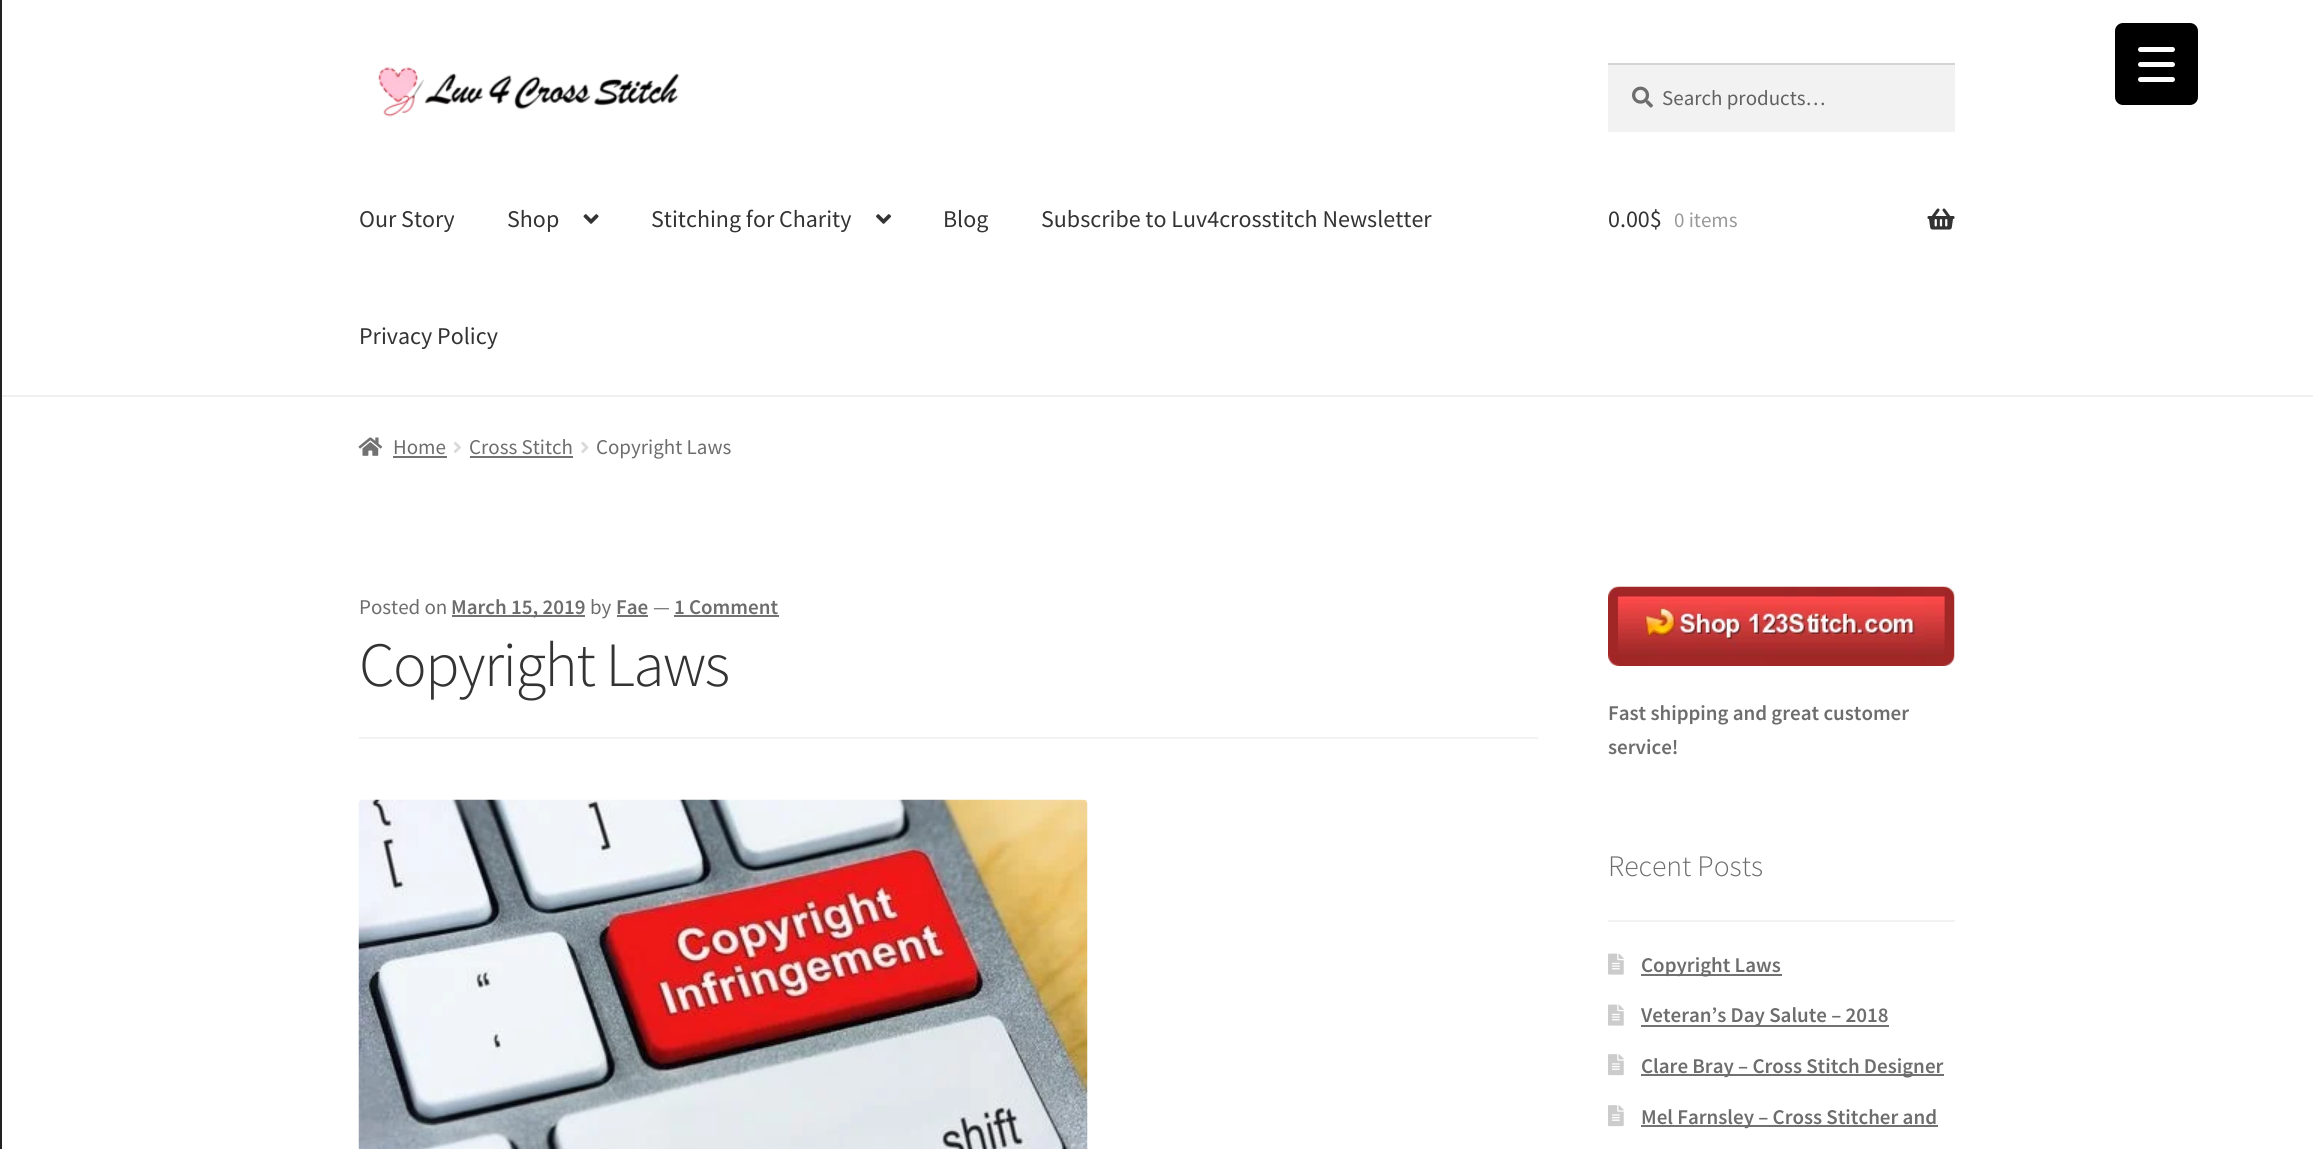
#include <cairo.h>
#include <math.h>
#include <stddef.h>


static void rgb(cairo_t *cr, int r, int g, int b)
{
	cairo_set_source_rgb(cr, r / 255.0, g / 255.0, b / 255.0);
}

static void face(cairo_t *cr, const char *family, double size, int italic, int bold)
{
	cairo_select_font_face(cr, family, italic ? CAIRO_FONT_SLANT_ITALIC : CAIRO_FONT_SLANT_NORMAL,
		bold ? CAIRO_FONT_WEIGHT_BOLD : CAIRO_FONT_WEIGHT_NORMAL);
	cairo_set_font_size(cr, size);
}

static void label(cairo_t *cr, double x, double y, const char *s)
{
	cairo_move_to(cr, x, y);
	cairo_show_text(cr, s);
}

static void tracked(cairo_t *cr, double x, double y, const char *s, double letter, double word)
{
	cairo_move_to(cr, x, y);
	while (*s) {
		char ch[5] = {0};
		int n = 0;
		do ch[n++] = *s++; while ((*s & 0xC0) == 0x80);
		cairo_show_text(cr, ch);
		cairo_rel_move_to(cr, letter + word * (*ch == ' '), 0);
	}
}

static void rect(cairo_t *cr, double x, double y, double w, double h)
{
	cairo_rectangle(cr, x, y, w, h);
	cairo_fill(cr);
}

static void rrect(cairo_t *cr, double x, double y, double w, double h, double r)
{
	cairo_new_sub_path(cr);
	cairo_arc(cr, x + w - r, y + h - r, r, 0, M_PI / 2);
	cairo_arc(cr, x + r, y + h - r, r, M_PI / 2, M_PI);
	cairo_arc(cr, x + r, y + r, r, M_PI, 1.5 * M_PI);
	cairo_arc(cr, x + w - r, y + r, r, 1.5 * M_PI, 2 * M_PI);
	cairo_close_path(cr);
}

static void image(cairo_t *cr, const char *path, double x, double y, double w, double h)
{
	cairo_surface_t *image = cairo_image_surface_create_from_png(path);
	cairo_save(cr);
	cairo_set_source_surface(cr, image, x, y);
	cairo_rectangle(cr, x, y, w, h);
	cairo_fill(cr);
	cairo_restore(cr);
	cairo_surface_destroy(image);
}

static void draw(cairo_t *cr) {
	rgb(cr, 255, 255, 255);
	cairo_paint(cr);
	rgb(cr, 240, 240, 240);
	rect(cr, 0, 395, 2313, 2);
	rgb(cr, 33, 33, 33);
	rect(cr, 0, 0, 2, 1149);
	rgb(cr, 0, 0, 0);
	rrect(cr, 2115, 23, 83, 82, 8);
	cairo_fill(cr);
	rgb(cr, 255, 255, 255);
	rrect(cr, 2138, 62, 37, 5, 2.5);
	cairo_fill(cr);
	rrect(cr, 2138, 47, 37, 5, 2.5);
	cairo_fill(cr);
	rrect(cr, 2138, 77, 37, 5, 2.5);
	cairo_fill(cr);
	image(cr, "image0.png", 378, 67, 302, 50);
	rgb(cr, 242, 242, 242);
	rect(cr, 1608, 65, 347, 67);
	image(cr, "image1.png", 1632, 86, 21, 22);
	rgb(cr, 212, 212, 212);
	rect(cr, 1608, 63, 347, 2);
	face(cr, "Source Sans Pro", 21, 0, 0);
	rgb(cr, 97, 97, 97);
	label(cr, 1662, 105, "Search products…");
	face(cr, "Source Sans Pro", 24, 0, 0);
	rgb(cr, 51, 51, 51);
	label(cr, 359, 227, "Our Story");
	label(cr, 507, 227, "Shop");
	image(cr, "image2.png", 583, 214, 16, 10);
	label(cr, 651, 227, "Stitching for Charity");
	image(cr, "image3.png", 876, 214, 15, 10);
	label(cr, 943, 227, "Blog");
	label(cr, 1041, 227, "Subscribe to Luv4crosstitch Newsletter");
	label(cr, 359, 344, "Privacy Policy");
	label(cr, 1608, 227, "0.00$");
	face(cr, "Source Sans Pro", 21, 0, 0);
	rgb(cr, 153, 153, 153);
	label(cr, 1674, 227, "0 items");
	image(cr, "image4.png", 1927, 208, 28, 22);
	image(cr, "image5.png", 358, 437, 25, 19);
	rgb(cr, 109, 109, 109);
	label(cr, 393, 454, "Home");
	rgb(cr, 114, 114, 114);
	rect(cr, 393, 456, 54, 2);
	image(cr, "image6.png", 453, 441, 8, 12);
	rgb(cr, 109, 109, 109);
	label(cr, 469, 454, "Cross Stitch");
	rgb(cr, 114, 114, 114);
	rect(cr, 470, 456, 103, 2);
	image(cr, "image7.png", 581, 441, 8, 12);
	rgb(cr, 109, 109, 109);
	label(cr, 596, 454, "Copyright Laws");
	rgb(cr, 242, 242, 242);
	rect(cr, 359, 737, 1179, 2);
	rgb(cr, 109, 109, 109);
	label(cr, 359, 614, "Posted on");
	rgb(cr, 114, 114, 114);
	rect(cr, 452, 615, 133, 2);
	face(cr, "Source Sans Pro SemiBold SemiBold", 21, 0, 0);
	rgb(cr, 109, 109, 109);
	label(cr, 451, 614, "March 15, 2019");
	face(cr, "Source Sans Pro", 21, 0, 0);
	label(cr, 590, 614, "by");
	face(cr, "Source Sans Pro SemiBold SemiBold", 21, 0, 0);
	label(cr, 616, 614, "Fae");
	rgb(cr, 114, 114, 114);
	rect(cr, 617, 615, 31, 2);
	face(cr, "Source Sans Pro", 21, 0, 0);
	rgb(cr, 109, 109, 109);
	label(cr, 653, 614, "—");
	face(cr, "Source Sans Pro SemiBold SemiBold", 21, 0, 0);
	label(cr, 674, 614, "1 Comment");
	rgb(cr, 114, 114, 114);
	rect(cr, 674, 615, 105, 2);
	face(cr, "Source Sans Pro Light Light", 63, 0, 0);
	rgb(cr, 51, 51, 51);
	tracked(cr, 359, 686, "Copyright Laws", -1.5, 0);
	image(cr, "image8.png", 358, 799, 730, 350);
	image(cr, "image9.png", 1608, 586, 347, 80);
	face(cr, "Source Sans Pro SemiBold SemiBold", 21, 0, 0);
	rgb(cr, 109, 109, 109);
	label(cr, 1608, 720, "Fast shipping and great customer");
	label(cr, 1608, 754, "service!");
	rgb(cr, 242, 242, 242);
	rect(cr, 1608, 920, 347, 2);
	face(cr, "Source Sans Pro Light Light", 29.75, 0, 0);
	rgb(cr, 109, 109, 109);
	label(cr, 1608, 876, "Recent Posts");
	image(cr, "image10.png", 1608, 953, 16, 22);
	rgb(cr, 114, 114, 114);
	rect(cr, 1641, 974, 141, 2);
	face(cr, "Source Sans Pro SemiBold SemiBold", 21, 0, 0);
	rgb(cr, 109, 109, 109);
	label(cr, 1641, 972, "Copyright Laws");
	image(cr, "image10.png", 1608, 1004, 16, 22);
	rgb(cr, 114, 114, 114);
	rect(cr, 1641, 1025, 248, 2);
	rgb(cr, 109, 109, 109);
	label(cr, 1641, 1022, "Veteran’s Day Salute – 2018");
	image(cr, "image11.png", 1608, 1054, 16, 22);
	rgb(cr, 114, 114, 114);
	rect(cr, 1641, 1074, 303, 2);
	rgb(cr, 109, 109, 109);
	label(cr, 1641, 1073, "Clare Bray – Cross Stitch Designer");
	image(cr, "image11.png", 1608, 1105, 16, 22);
	rgb(cr, 114, 114, 114);
	rect(cr, 1641, 1125, 297, 2);
	rgb(cr, 109, 109, 109);
	label(cr, 1641, 1124, "Mel Farnsley – Cross Stitcher and");
}

int main(void) {
	cairo_surface_t *surface = cairo_image_surface_create(CAIRO_FORMAT_RGB24, 2313, 1149);
	cairo_t *cr = cairo_create(surface);
	cairo_font_options_t *options = cairo_font_options_create();
	cairo_font_options_set_hint_metrics(options, CAIRO_HINT_METRICS_OFF);
	cairo_font_options_set_hint_style(options, CAIRO_HINT_STYLE_NONE);
	cairo_set_font_options(cr, options);
	cairo_set_miter_limit(cr, 4);
	draw(cr);
	cairo_surface_write_to_png(surface, "render.png");
	cairo_font_options_destroy(options);
	cairo_destroy(cr);
	cairo_surface_destroy(surface);
	return 0;
}
